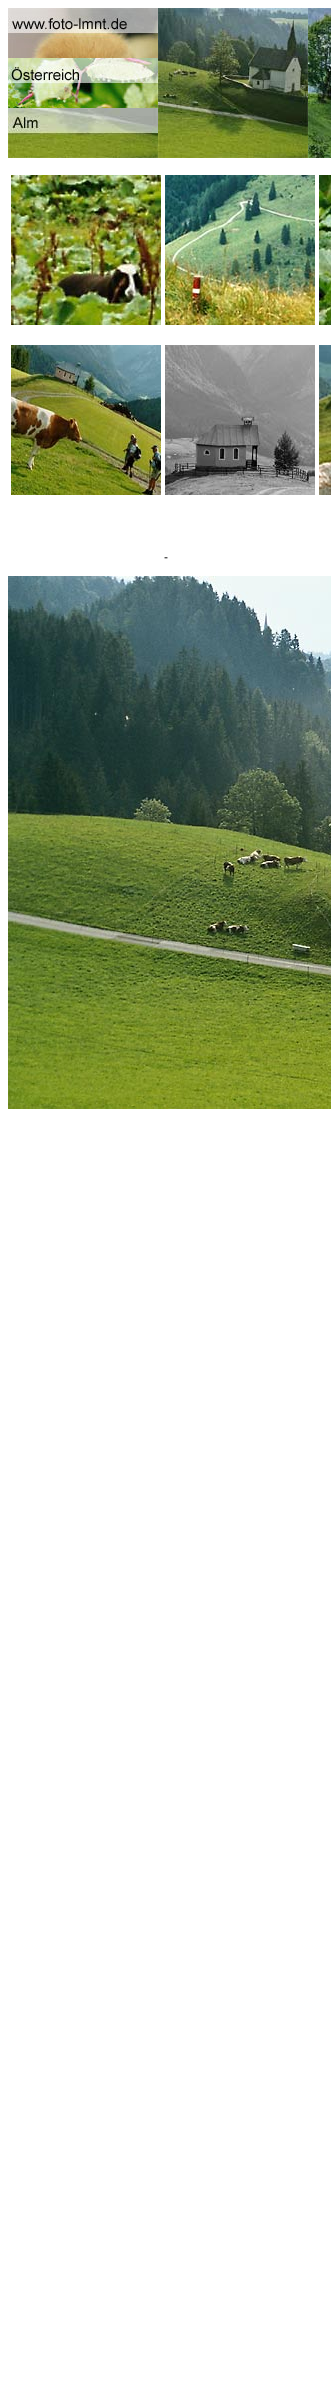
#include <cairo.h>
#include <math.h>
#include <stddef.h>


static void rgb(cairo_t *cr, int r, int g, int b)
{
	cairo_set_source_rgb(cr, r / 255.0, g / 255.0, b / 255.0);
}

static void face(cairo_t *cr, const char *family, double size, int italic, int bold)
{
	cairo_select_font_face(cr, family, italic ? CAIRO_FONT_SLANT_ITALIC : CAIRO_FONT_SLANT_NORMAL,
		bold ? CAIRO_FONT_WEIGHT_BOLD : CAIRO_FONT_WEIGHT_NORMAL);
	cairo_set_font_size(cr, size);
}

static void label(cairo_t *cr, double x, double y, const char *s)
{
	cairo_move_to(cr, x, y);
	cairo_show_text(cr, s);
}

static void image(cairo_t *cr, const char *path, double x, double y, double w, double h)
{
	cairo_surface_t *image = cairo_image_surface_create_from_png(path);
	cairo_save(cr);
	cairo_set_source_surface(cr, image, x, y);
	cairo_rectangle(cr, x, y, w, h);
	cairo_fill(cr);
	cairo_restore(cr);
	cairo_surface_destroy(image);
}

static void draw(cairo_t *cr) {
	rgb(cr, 255, 255, 255);
	cairo_paint(cr);
	image(cr, "image0.png", 8, 8, 150, 50);
	image(cr, "image1.png", 158, 8, 150, 150);
	image(cr, "image2.png", 308, 8, 23, 150);
	image(cr, "image3.png", 8, 58, 150, 50);
	image(cr, "image4.png", 8, 108, 150, 50);
	image(cr, "image5.png", 11, 175, 150, 150);
	image(cr, "image6.png", 165, 175, 150, 150);
	image(cr, "image7.png", 319, 175, 12, 150);
	image(cr, "image8.png", 11, 345, 150, 150);
	image(cr, "image9.png", 165, 345, 150, 150);
	image(cr, "image10.png", 319, 345, 12, 150);
	face(cr, "Liberation Sans", 12, 0, 0);
	rgb(cr, 0, 0, 0);
	label(cr, 164, 561, "-");
	image(cr, "image11.png", 8, 576, 323, 533);
}

int main(void) {
	cairo_surface_t *surface = cairo_image_surface_create(CAIRO_FORMAT_RGB24, 331, 2399);
	cairo_t *cr = cairo_create(surface);
	cairo_font_options_t *options = cairo_font_options_create();
	cairo_font_options_set_hint_metrics(options, CAIRO_HINT_METRICS_OFF);
	cairo_font_options_set_hint_style(options, CAIRO_HINT_STYLE_NONE);
	cairo_set_font_options(cr, options);
	cairo_set_miter_limit(cr, 4);
	draw(cr);
	cairo_surface_write_to_png(surface, "render.png");
	cairo_font_options_destroy(options);
	cairo_destroy(cr);
	cairo_surface_destroy(surface);
	return 0;
}
